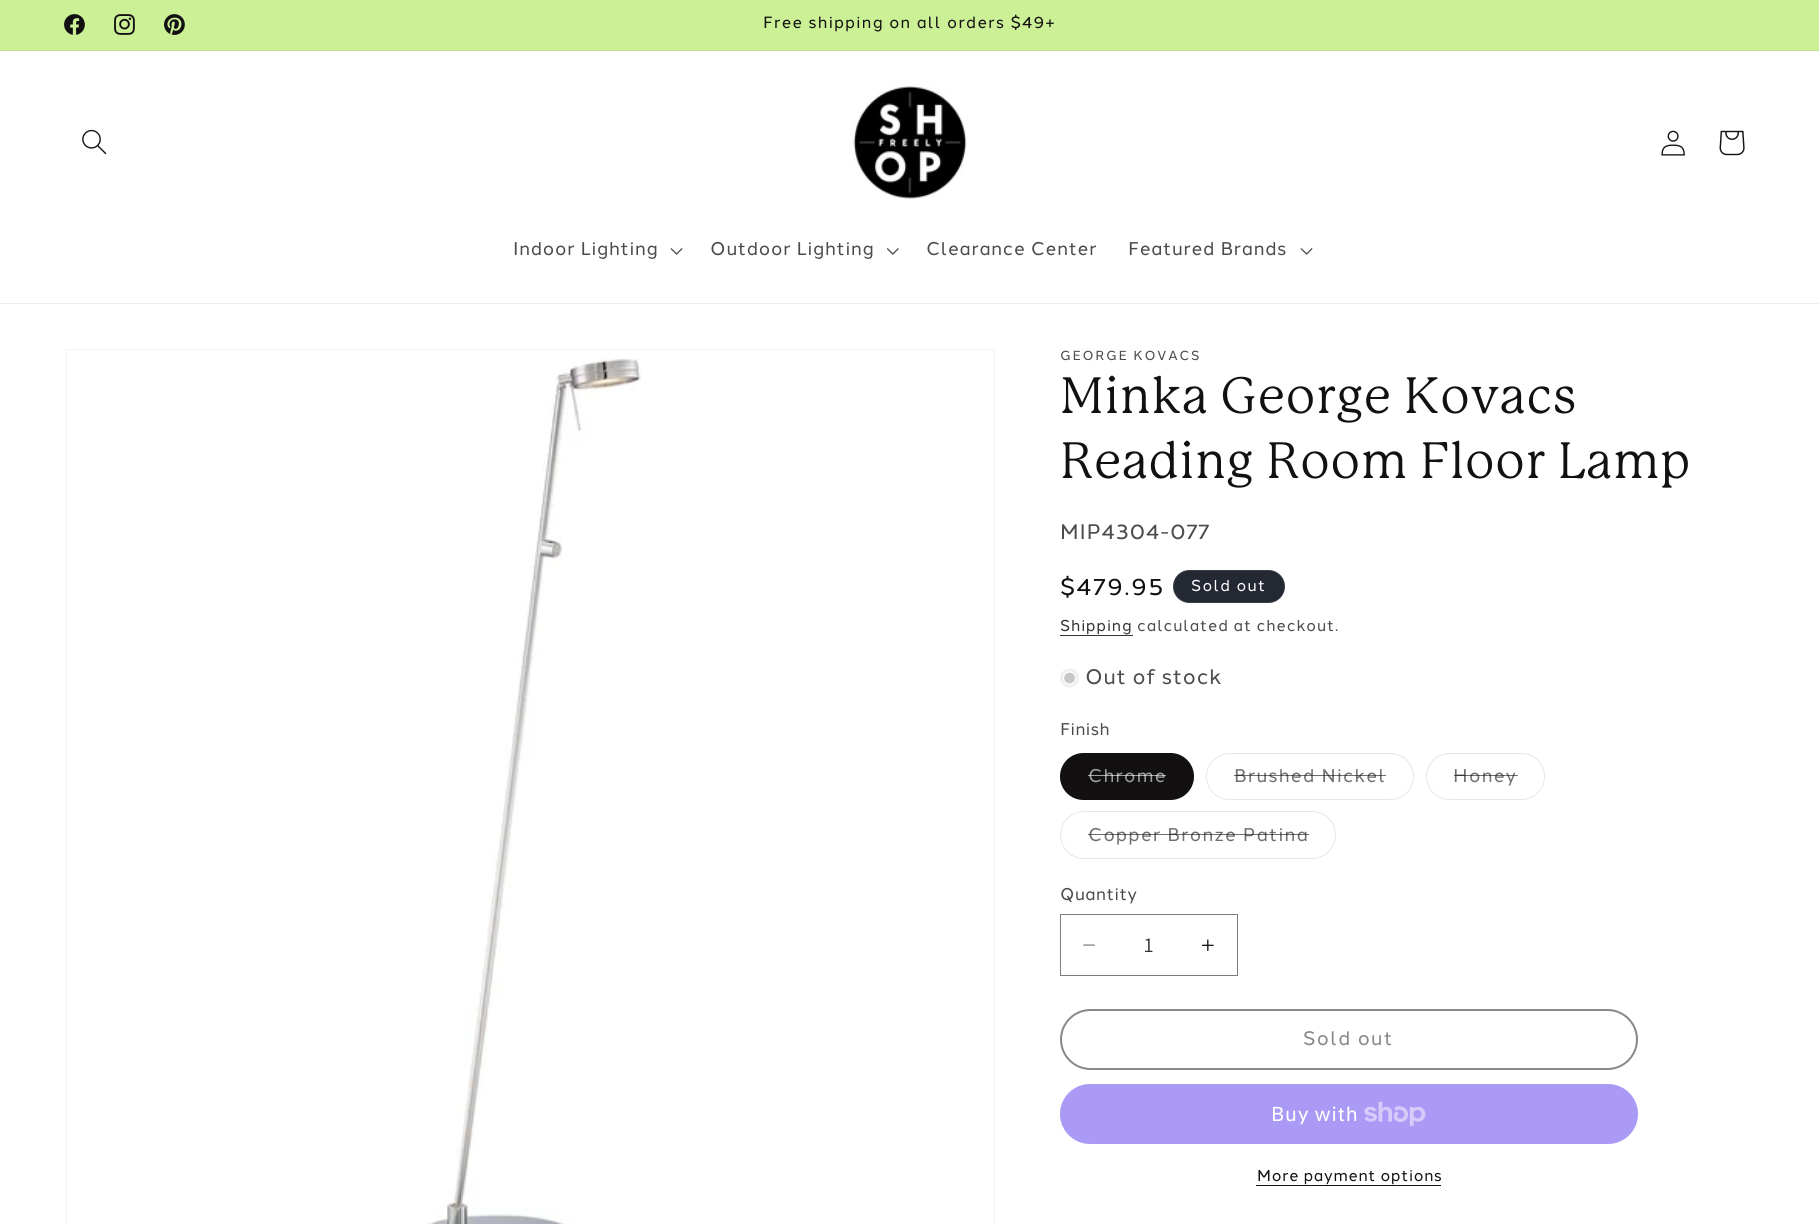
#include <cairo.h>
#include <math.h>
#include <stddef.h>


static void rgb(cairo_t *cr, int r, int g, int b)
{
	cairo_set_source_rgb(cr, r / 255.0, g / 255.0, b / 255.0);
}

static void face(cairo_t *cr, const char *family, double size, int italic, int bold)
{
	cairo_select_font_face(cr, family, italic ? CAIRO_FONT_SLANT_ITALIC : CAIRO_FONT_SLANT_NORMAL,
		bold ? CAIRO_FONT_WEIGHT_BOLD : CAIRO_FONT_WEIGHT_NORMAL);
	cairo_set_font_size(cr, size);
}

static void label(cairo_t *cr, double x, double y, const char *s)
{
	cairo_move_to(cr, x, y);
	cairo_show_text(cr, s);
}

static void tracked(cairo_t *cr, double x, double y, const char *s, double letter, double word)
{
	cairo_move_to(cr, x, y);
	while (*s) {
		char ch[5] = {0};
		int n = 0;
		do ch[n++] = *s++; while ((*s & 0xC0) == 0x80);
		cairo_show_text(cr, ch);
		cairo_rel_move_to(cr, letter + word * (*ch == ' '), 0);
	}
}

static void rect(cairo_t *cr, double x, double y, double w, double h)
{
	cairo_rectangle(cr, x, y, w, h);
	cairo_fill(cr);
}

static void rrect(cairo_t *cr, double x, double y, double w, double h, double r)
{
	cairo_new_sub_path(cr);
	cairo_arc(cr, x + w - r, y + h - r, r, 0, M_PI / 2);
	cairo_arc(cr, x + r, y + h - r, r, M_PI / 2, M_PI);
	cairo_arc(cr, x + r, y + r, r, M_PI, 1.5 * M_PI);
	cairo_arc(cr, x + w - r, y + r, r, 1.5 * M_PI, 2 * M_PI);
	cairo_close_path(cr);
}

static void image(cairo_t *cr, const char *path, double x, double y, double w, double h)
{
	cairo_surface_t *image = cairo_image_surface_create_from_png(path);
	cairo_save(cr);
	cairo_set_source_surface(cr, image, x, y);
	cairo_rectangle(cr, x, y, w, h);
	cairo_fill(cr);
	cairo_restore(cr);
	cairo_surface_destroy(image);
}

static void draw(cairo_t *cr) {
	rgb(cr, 255, 255, 255);
	cairo_paint(cr);
	rgb(cr, 204, 240, 149);
	rect(cr, 0, 0, 1819, 50);
	rgb(cr, 189, 222, 138);
	rect(cr, 0, 50, 1819, 1);
	image(cr, "image0.png", 64, 14, 21, 21);
	image(cr, "image1.png", 114, 14, 21, 21);
	image(cr, "image2.png", 164, 14, 21, 21);
	face(cr, "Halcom", 16.25, 0, 0);
	rgb(cr, 18, 16, 17);
	tracked(cr, 763, 28, "Free shipping on all orders $49+", 1.3, 0);
	rgb(cr, 236, 236, 236);
	rect(cr, 0, 303, 1819, 1);
	image(cr, "image3.png", 82, 129, 25, 26);
	image(cr, "image4.png", 853, 86, 114, 113);
	image(cr, "image5.png", 1661, 130, 24, 26);
	image(cr, "image6.png", 1719, 130, 26, 26);
	face(cr, "Halcom", 18.4, 0, 0);
	rgb(cr, 77, 76, 77);
	tracked(cr, 513, 255, "Indoor Lighting", 0.75, 0);
	image(cr, "image7.png", 670, 248, 13, 7);
	tracked(cr, 710, 255, "Outdoor Lighting", 0.75, 0);
	image(cr, "image8.png", 887, 248, 12, 7);
	tracked(cr, 926, 255, "Clearance Center", 0.75, 0);
	tracked(cr, 1128, 255, "Featured Brands", 0.75, 0);
	image(cr, "image7.png", 1300, 248, 13, 7);
	cairo_rectangle(cr, 66.5, 349.5, 928, 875);
	rgb(cr, 243, 243, 243);
	cairo_set_line_width(cr, 1);
	cairo_stroke(cr);
	image(cr, "image9.png", 426, 358, 215, 866);
	face(cr, "Halcom", 13.1, 0, 0);
	rgb(cr, 77, 76, 77);
	tracked(cr, 1060, 360, "GEORGE KOVACS", 1.75, 0);
	face(cr, "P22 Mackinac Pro", 50, 0, 0);
	rgb(cr, 18, 16, 17);
	tracked(cr, 1060, 413, "Minka George Kovacs", 0.75, 0);
	tracked(cr, 1060, 478, "Reading Room Floor Lamp", 0.75, 0);
	face(cr, "Halcom", 21, 0, 0);
	rgb(cr, 77, 76, 77);
	tracked(cr, 1060, 539, "MIP4304-077", 0.75, 0);
	face(cr, "Halcom", 23.5, 0, 0);
	rgb(cr, 18, 16, 17);
	tracked(cr, 1060, 595, "$479.95", 1.75, 0);
	rgb(cr, 36, 40, 51);
	rrect(cr, 1173, 570, 112, 33, 16.5);
	cairo_fill(cr);
	rrect(cr, 1173.5, 570.5, 111, 32, 16);
	cairo_set_source_rgba(cr, 1, 1, 1, 0.1);
	cairo_stroke(cr);
	face(cr, "Halcom", 15.75, 0, 0);
	rgb(cr, 255, 255, 255);
	tracked(cr, 1191, 591, "Sold out", 1.3, 0);
	rgb(cr, 54, 52, 53);
	tracked(cr, 1060, 631, "Shipping", 0.9, 0);
	rect(cr, 1060, 635, 73, 1);
	rgb(cr, 77, 76, 77);
	tracked(cr, 1137, 631, "calculated at checkout.", 0.9, 0);
	cairo_save(cr);
	cairo_rectangle(cr, 1060, 669, 19, 19);
	cairo_clip(cr);
	rgb(cr, 239, 239, 239);
	cairo_arc(cr, 1069.5, 678, 9.5, 0, 2 * M_PI);
	cairo_fill(cr);
	cairo_restore(cr);
	rgb(cr, 200, 200, 200);
	cairo_arc(cr, 1069.5, 678, 6, 0, 2 * M_PI);
	cairo_fill_preserve(cr);
	rgb(cr, 255, 255, 255);
	cairo_set_line_width(cr, 1.2);
	cairo_stroke(cr);
	face(cr, "Halcom", 21, 0, 0);
	rgb(cr, 77, 76, 77);
	tracked(cr, 1085, 684, "Out of stock", 0.75, 0);
	face(cr, "Halcom", 17, 0, 0);
	tracked(cr, 1060, 735, "Finish", 0.5, 0);
	rgb(cr, 18, 16, 17);
	rrect(cr, 1060, 753, 134, 47, 23.5);
	cairo_fill(cr);
	rrect(cr, 1060.5, 753.5, 133, 46, 23);
	cairo_set_source_rgba(cr, 0.071, 0.063, 0.067, 0.1);
	cairo_set_line_width(cr, 1);
	cairo_stroke(cr);
	face(cr, "Halcom", 18.4, 0, 0);
	rgb(cr, 160, 159, 160);
	tracked(cr, 1088, 782, "Chrome", 1.3, 0);
	cairo_set_source_rgba(cr, 1, 1, 1, 0.6);
	rect(cr, 1088, 775, 78, 1);
	rrect(cr, 1206.5, 753.5, 207, 46, 23);
	rgb(cr, 231, 231, 231);
	cairo_stroke(cr);
	rgb(cr, 113, 112, 112);
	tracked(cr, 1234, 782, "Brushed Nickel", 1.3, 0);
	cairo_set_source_rgba(cr, 0.071, 0.063, 0.067, 0.6);
	rect(cr, 1234, 775, 152, 1);
	rrect(cr, 1426.5, 753.5, 118, 46, 23);
	rgb(cr, 231, 231, 231);
	cairo_stroke(cr);
	rgb(cr, 113, 112, 112);
	tracked(cr, 1453, 782, "Honey", 1.3, 0);
	cairo_set_source_rgba(cr, 0.071, 0.063, 0.067, 0.6);
	rect(cr, 1454, 775, 64, 1);
	rrect(cr, 1060.5, 811.5, 275, 47, 23.5);
	rgb(cr, 231, 231, 231);
	cairo_stroke(cr);
	rgb(cr, 113, 112, 112);
	tracked(cr, 1088, 841, "Copper Bronze Patina", 1.3, 0);
	cairo_set_source_rgba(cr, 0.071, 0.063, 0.067, 0.6);
	rect(cr, 1088, 834, 221, 1);
	face(cr, "Halcom", 17, 0, 0);
	rgb(cr, 77, 76, 77);
	tracked(cr, 1060, 900, "Quantity", 0.5, 0);
	image(cr, "image10.png", 1083, 944, 12, 2);
	image(cr, "image11.png", 1201, 939, 13, 12);
	cairo_rectangle(cr, 1060.5, 914.5, 177, 61);
	rgb(cr, 125, 124, 124);
	cairo_stroke(cr);
	face(cr, "Assistant", 21, 0, 0);
	rgb(cr, 54, 52, 53);
	label(cr, 1144, 952, "1");
	rrect(cr, 1061, 1010, 576, 59, 29.5);
	rgb(cr, 137, 136, 136);
	cairo_set_line_width(cr, 2);
	cairo_stroke(cr);
	face(cr, "Halcom", 19.5, 0, 0);
	tracked(cr, 1303, 1045, "Sold out", 1.3, 0);
	rgb(cr, 170, 153, 245);
	rrect(cr, 1060, 1084, 578, 60, 30);
	cairo_fill(cr);
	face(cr, "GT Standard", 20, 0, 0);
	rgb(cr, 255, 255, 255);
	tracked(cr, 1271, 1121, "Buy with", 0.75, 0);
	image(cr, "image12.png", 1364, 1101, 62, 25);
	face(cr, "Halcom", 15.75, 0, 0);
	rgb(cr, 18, 16, 17);
	tracked(cr, 1257, 1181, "More payment options", 0.7, 0);
	rect(cr, 1256, 1185, 185, 1);
}

int main(void) {
	cairo_surface_t *surface = cairo_image_surface_create(CAIRO_FORMAT_RGB24, 1819, 1224);
	cairo_t *cr = cairo_create(surface);
	cairo_font_options_t *options = cairo_font_options_create();
	cairo_font_options_set_hint_metrics(options, CAIRO_HINT_METRICS_OFF);
	cairo_font_options_set_hint_style(options, CAIRO_HINT_STYLE_NONE);
	cairo_set_font_options(cr, options);
	cairo_set_miter_limit(cr, 4);
	draw(cr);
	cairo_surface_write_to_png(surface, "render.png");
	cairo_font_options_destroy(options);
	cairo_destroy(cr);
	cairo_surface_destroy(surface);
	return 0;
}
